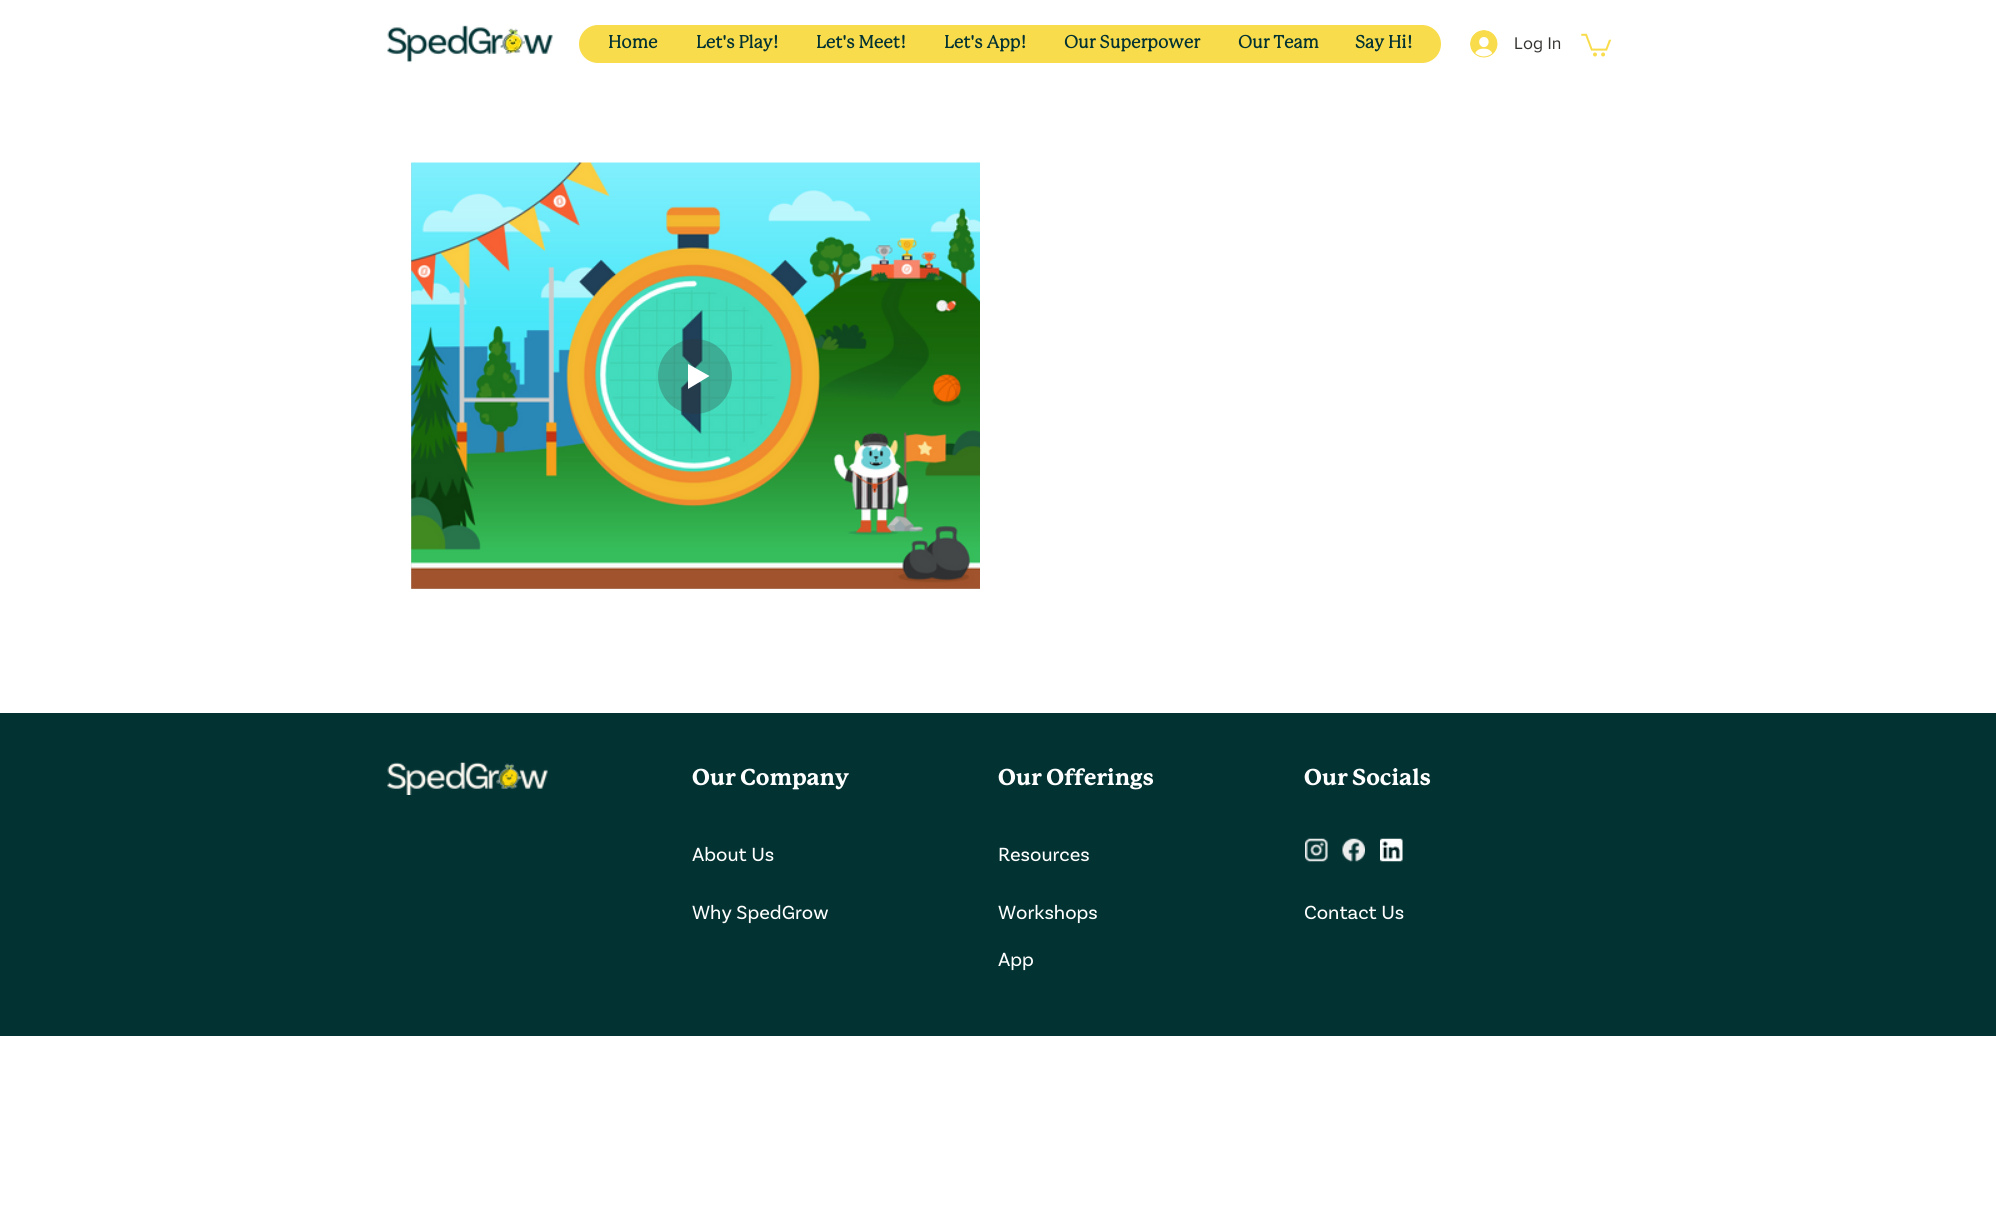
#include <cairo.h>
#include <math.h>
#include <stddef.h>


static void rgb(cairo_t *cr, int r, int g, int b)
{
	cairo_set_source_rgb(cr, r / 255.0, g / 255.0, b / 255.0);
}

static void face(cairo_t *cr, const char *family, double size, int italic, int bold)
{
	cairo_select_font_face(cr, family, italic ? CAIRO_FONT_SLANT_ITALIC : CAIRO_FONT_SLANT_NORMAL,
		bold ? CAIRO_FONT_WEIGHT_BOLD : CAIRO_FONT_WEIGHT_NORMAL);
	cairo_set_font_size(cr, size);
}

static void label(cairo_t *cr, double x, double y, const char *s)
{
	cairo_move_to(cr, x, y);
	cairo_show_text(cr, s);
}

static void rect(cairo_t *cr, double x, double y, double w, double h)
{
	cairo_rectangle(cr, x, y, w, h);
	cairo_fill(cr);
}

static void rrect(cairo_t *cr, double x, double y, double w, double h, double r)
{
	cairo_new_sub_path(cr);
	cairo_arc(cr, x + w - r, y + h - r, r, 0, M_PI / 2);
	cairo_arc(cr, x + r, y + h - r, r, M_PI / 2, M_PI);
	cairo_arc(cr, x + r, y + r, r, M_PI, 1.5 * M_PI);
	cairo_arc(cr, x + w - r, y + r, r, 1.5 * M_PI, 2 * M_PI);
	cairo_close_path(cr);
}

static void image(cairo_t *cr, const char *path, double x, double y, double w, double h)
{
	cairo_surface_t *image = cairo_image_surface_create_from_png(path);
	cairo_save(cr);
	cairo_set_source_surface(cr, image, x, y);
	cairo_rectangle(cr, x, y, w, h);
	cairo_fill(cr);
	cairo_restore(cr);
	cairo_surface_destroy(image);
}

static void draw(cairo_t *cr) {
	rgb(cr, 255, 255, 255);
	cairo_paint(cr);
	image(cr, "image0.png", 387, 25, 166, 38);
	rgb(cr, 248, 220, 76);
	rrect(cr, 579, 25, 862, 38, 19);
	cairo_fill(cr);
	face(cr, "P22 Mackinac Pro", 17.5, 0, 1);
	rgb(cr, 3, 50, 51);
	label(cr, 608, 48, "Home");
	label(cr, 696, 48, "Let's Play!");
	label(cr, 816, 48, "Let's Meet!");
	label(cr, 944, 48, "Let's App!");
	label(cr, 1064, 48, "Our Superpower");
	label(cr, 1238, 48, "Our Team");
	label(cr, 1355, 48, "Say Hi!");
	image(cr, "image1.png", 1470, 30, 28, 28);
	face(cr, "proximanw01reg", 17.5, 0, 0);
	rgb(cr, 51, 50, 47);
	label(cr, 1514, 49, "Log In");
	image(cr, "image2.png", 1581, 33, 31, 24);
	rgb(cr, 204, 204, 203);
	rect(cr, 411, 163, 569, 426);
	image(cr, "image3.png", 411, 162, 569, 427);
	cairo_set_source_rgba(cr, 0.2, 0.196, 0.184, 0.28);
	cairo_set_fill_rule(cr, CAIRO_FILL_RULE_EVEN_ODD);
	cairo_new_path(cr);
	cairo_move_to(cr, 695, 339);
	cairo_curve_to(cr, 716, 339, 732, 356, 732, 376);
	cairo_curve_to(cr, 732, 397, 716, 414, 695, 414);
	cairo_curve_to(cr, 674, 414, 658, 397, 658, 376);
	cairo_curve_to(cr, 658, 356, 674, 339, 695, 339);
	cairo_close_path(cr);
	cairo_fill(cr);
	rgb(cr, 255, 255, 255);
	cairo_set_fill_rule(cr, CAIRO_FILL_RULE_WINDING);
	cairo_new_path(cr);
	cairo_move_to(cr, 709.5, 376);
	cairo_line_to(cr, 688, 389);
	cairo_line_to(cr, 688, 364);
	cairo_close_path(cr);
	cairo_fill(cr);
	rgb(cr, 3, 50, 51);
	rect(cr, 0, 713, 1996, 323);
	image(cr, "image4.png", 387, 762, 161, 33);
	face(cr, "P22 Mackinac Pro ExtraBold", 22.5, 0, 0);
	rgb(cr, 255, 255, 255);
	label(cr, 692, 785, "Our Company");
	label(cr, 998, 785, "Our Offerings");
	label(cr, 1304, 785, "Our Socials");
	face(cr, "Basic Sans", 20, 0, 0);
	label(cr, 692, 861, "About Us");
	label(cr, 998, 861, "Resources");
	image(cr, "image5.png", 1305, 838, 23, 24);
	image(cr, "image6.png", 1342, 838, 23, 24);
	image(cr, "image7.png", 1380, 838, 23, 24);
	label(cr, 692, 919, "Why SpedGrow");
	label(cr, 998, 919, "Workshops");
	label(cr, 1304, 919, "Contact Us");
	label(cr, 998, 966, "App");
}

int main(void) {
	cairo_surface_t *surface = cairo_image_surface_create(CAIRO_FORMAT_RGB24, 1996, 1207);
	cairo_t *cr = cairo_create(surface);
	cairo_font_options_t *options = cairo_font_options_create();
	cairo_font_options_set_hint_metrics(options, CAIRO_HINT_METRICS_OFF);
	cairo_font_options_set_hint_style(options, CAIRO_HINT_STYLE_NONE);
	cairo_set_font_options(cr, options);
	cairo_set_miter_limit(cr, 4);
	draw(cr);
	cairo_surface_write_to_png(surface, "render.png");
	cairo_font_options_destroy(options);
	cairo_destroy(cr);
	cairo_surface_destroy(surface);
	return 0;
}
